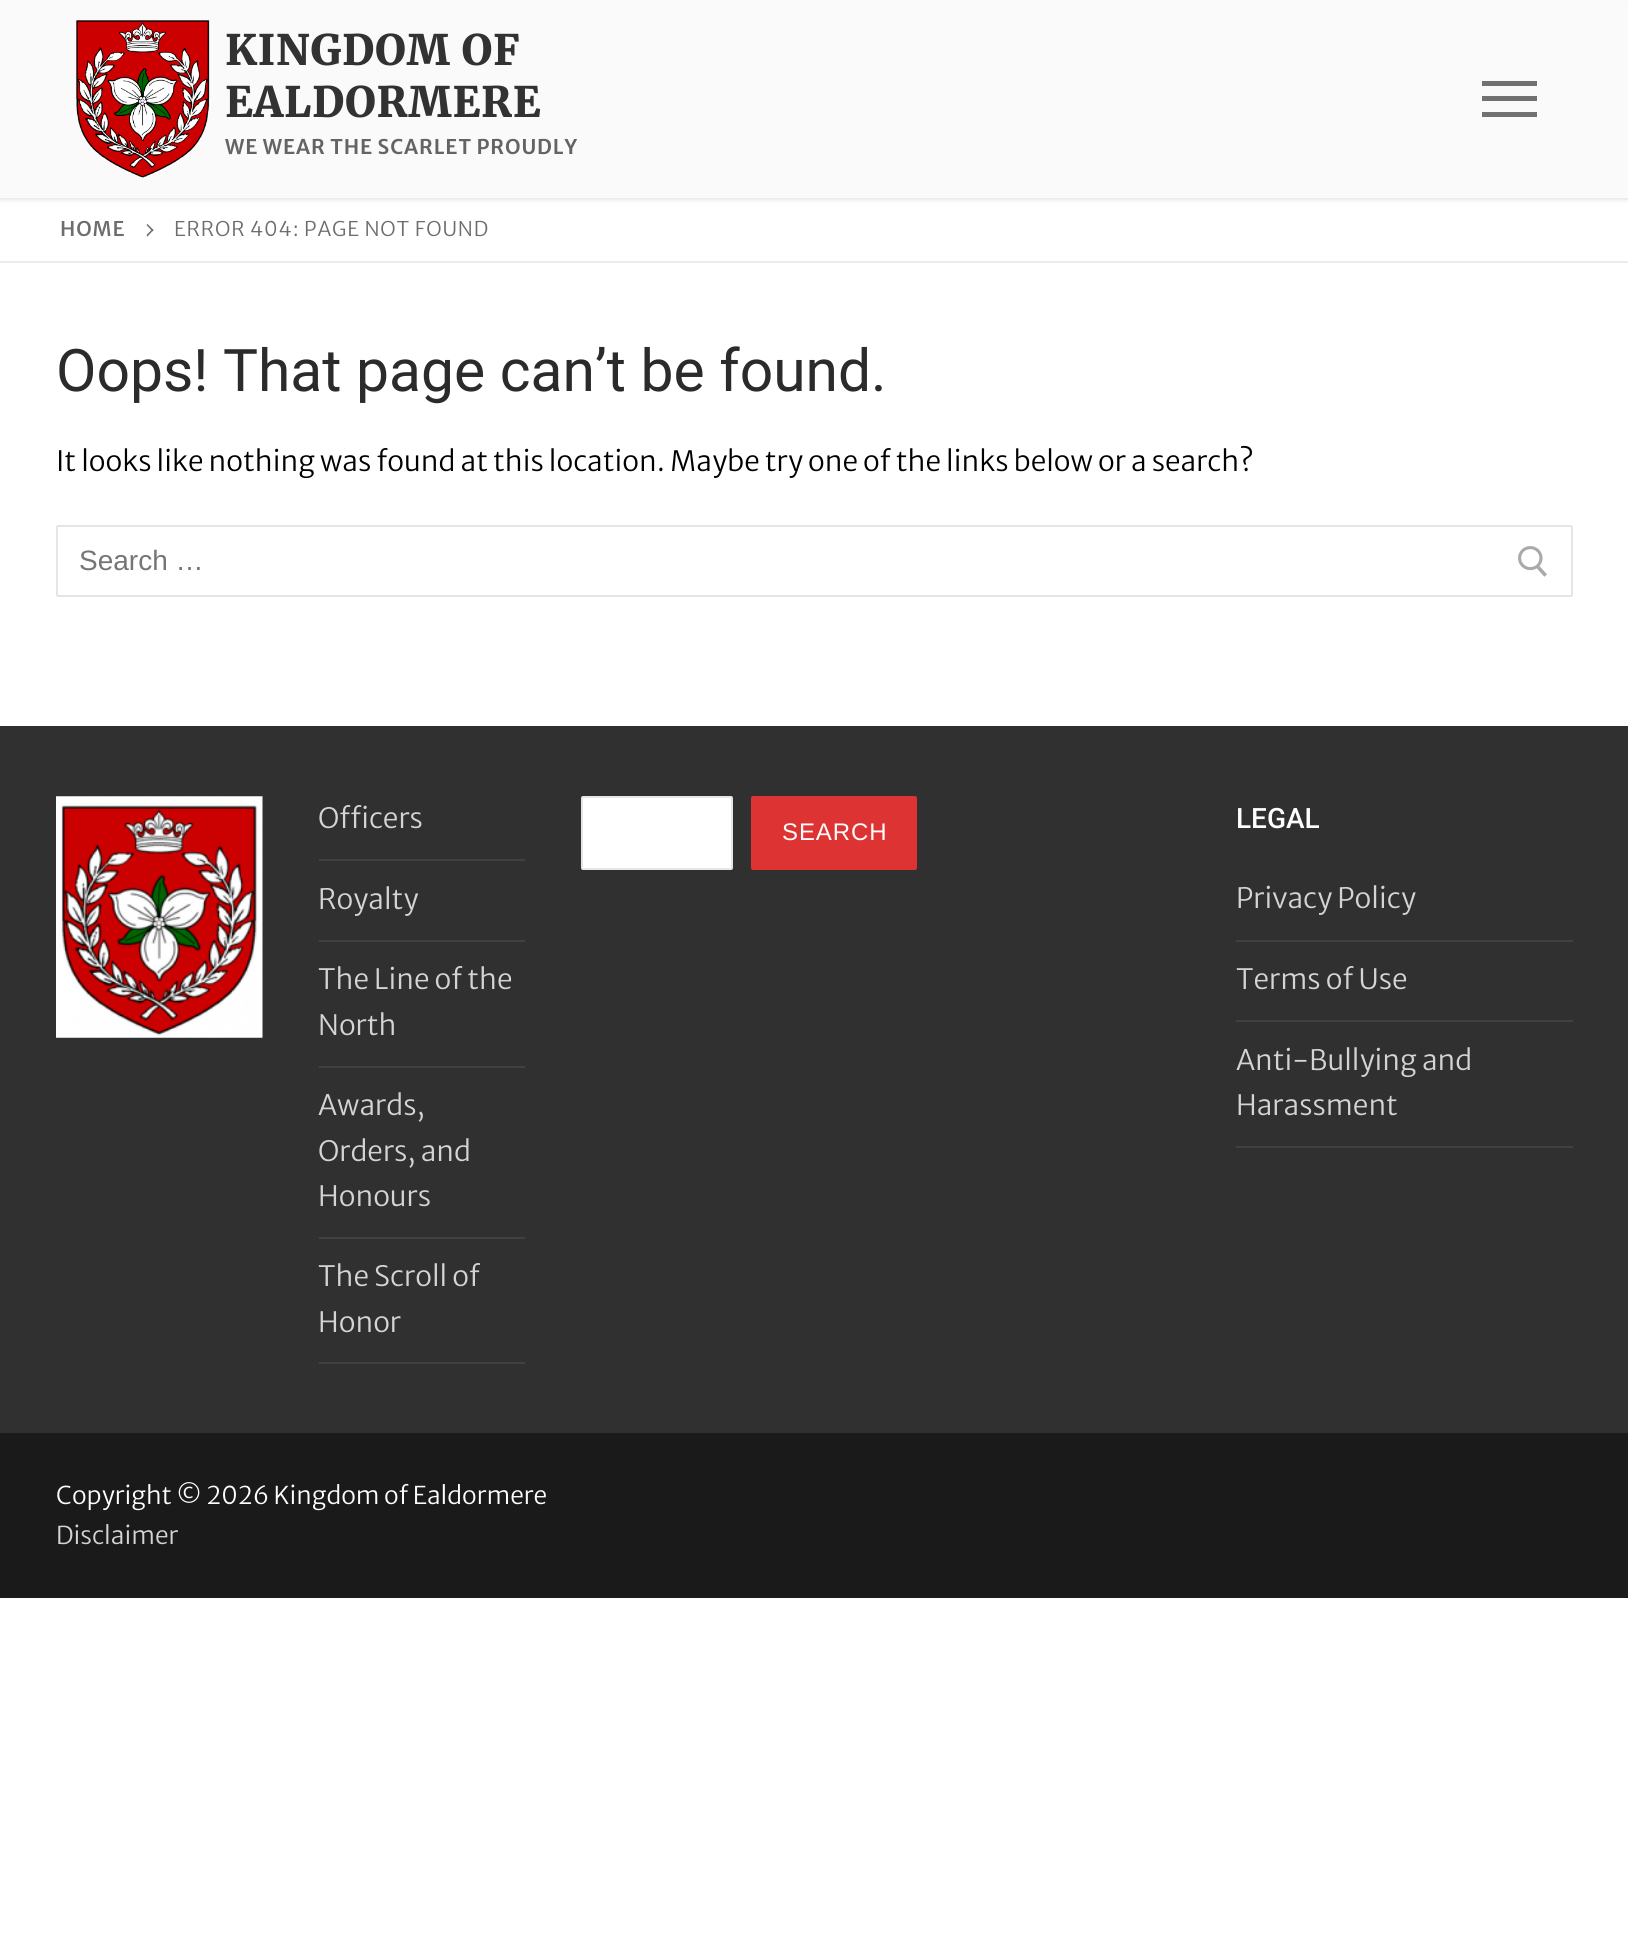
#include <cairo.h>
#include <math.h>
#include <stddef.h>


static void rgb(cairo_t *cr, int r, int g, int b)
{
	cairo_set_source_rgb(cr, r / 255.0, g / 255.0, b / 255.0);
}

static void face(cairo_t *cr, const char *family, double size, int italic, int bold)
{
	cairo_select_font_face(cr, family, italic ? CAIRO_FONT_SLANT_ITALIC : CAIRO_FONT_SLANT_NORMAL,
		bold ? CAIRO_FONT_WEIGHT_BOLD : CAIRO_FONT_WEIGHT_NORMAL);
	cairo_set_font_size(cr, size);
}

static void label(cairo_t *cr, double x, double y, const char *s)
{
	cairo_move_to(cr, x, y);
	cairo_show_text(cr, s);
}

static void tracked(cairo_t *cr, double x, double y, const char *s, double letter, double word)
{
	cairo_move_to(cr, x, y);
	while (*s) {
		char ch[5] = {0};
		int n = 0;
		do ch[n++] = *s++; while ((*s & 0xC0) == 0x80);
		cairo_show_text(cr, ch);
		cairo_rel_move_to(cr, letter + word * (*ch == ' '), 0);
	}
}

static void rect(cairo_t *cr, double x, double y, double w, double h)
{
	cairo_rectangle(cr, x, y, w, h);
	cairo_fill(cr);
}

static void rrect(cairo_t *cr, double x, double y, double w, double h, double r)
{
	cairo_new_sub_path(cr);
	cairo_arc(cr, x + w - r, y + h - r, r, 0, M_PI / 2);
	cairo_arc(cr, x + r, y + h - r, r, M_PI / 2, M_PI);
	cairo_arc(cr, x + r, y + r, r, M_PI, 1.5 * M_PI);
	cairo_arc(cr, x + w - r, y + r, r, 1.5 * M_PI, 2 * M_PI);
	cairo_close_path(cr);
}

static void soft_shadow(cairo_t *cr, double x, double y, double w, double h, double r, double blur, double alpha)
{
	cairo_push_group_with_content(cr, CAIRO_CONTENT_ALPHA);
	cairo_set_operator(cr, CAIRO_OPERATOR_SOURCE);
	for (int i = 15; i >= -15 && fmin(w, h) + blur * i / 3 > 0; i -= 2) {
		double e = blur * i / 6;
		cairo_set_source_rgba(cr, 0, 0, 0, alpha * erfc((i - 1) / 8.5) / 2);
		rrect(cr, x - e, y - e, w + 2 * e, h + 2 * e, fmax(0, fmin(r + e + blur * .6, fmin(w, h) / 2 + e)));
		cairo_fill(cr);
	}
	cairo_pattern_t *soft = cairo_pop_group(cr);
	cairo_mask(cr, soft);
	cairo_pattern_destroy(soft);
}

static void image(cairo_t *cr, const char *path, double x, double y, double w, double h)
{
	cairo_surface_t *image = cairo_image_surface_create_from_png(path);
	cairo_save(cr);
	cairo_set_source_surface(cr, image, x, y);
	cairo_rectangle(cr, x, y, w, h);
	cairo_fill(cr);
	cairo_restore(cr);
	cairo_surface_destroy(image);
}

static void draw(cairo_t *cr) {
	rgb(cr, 255, 255, 255);
	cairo_paint(cr);
	rgb(cr, 225, 229, 234);
	soft_shadow(cr, 0, 2, 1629, 198, 0, 2, 1);
	rgb(cr, 250, 250, 250);
	rect(cr, 0, 1, 1628, 197);
	image(cr, "image0.png", 76, 20, 134, 158);
	face(cr, "Merriweather Black", 42, 0, 0);
	rgb(cr, 50, 50, 50);
	tracked(cr, 225, 65, "KINGDOM OF", 0.75, 0);
	tracked(cr, 225, 117, "EALDORMERE", 0.75, 0);
	face(cr, "Merriweather Sans SemiBold", 20.2, 0, 0);
	rgb(cr, 100, 100, 100);
	tracked(cr, 225, 154, "WE WEAR THE SCARLET PROUDLY", 0.9, 0);
	rgb(cr, 113, 113, 113);
	rect(cr, 1482, 96, 55, 5);
	rect(cr, 1482, 81, 55, 5);
	rect(cr, 1482, 112, 55, 5);
	rgb(cr, 234, 236, 238);
	rect(cr, 0, 261, 1628, 2);
	face(cr, "Merriweather Sans Medium", 20.2, 0, 0);
	rgb(cr, 109, 109, 109);
	tracked(cr, 60, 236, "HOME", 0.9, 0);
	cairo_new_path(cr);
	cairo_move_to(cr, 153.5, 230);
	cairo_line_to(cr, 147.5, 236.5);
	cairo_line_to(cr, 146.5, 235);
	cairo_line_to(cr, 152.5, 229);
	cairo_close_path(cr);
	cairo_fill(cr);
	cairo_new_path(cr);
	cairo_move_to(cr, 153.5, 230);
	cairo_line_to(cr, 152.5, 231.5);
	cairo_line_to(cr, 146.5, 225);
	cairo_line_to(cr, 147.5, 224);
	cairo_close_path(cr);
	cairo_fill(cr);
	face(cr, "Merriweather Sans Light", 20.2, 0, 0);
	tracked(cr, 174, 236, "ERROR 404: PAGE NOT FOUND", 0.9, 0);
	face(cr, "Roboto", 58.75, 0, 0);
	rgb(cr, 43, 43, 43);
	label(cr, 56, 391, "Oops! That page can’t be found.");
	face(cr, "Merriweather Sans Light", 28, 0, 0);
	rgb(cr, 0, 0, 0);
	label(cr, 56, 471, "It looks like nothing was found at this location. Maybe try one of the links below or a search?");
	rrect(cr, 57, 526, 1515, 70, 1);
	rgb(cr, 229, 229, 229);
	cairo_stroke(cr);
	face(cr, "Liberation Sans", 28, 0, 0);
	rgb(cr, 117, 117, 117);
	label(cr, 79, 570, "Search …");
	image(cr, "image1.png", 1518, 546, 29, 31);
	rgb(cr, 48, 48, 48);
	rect(cr, 0, 726, 1628, 707);
	image(cr, "image2.png", 56, 796, 207, 242);
	rgb(cr, 65, 65, 65);
	rect(cr, 319, 859, 206, 2);
	face(cr, "Merriweather Sans Light", 28, 0, 0);
	rgb(cr, 212, 212, 212);
	label(cr, 318, 828, "Officers");
	rgb(cr, 65, 65, 65);
	rect(cr, 319, 940, 206, 2);
	rgb(cr, 212, 212, 212);
	label(cr, 318, 909, "Royalty");
	rgb(cr, 65, 65, 65);
	rect(cr, 319, 1066, 206, 2);
	rgb(cr, 212, 212, 212);
	label(cr, 318, 989, "The Line of the");
	label(cr, 318, 1035, "North");
	rgb(cr, 65, 65, 65);
	rect(cr, 319, 1237, 206, 2);
	rgb(cr, 212, 212, 212);
	label(cr, 318, 1115, "Awards,");
	label(cr, 318, 1161, "Orders, and");
	label(cr, 318, 1206, "Honours");
	rgb(cr, 65, 65, 65);
	rect(cr, 319, 1362, 206, 2);
	rgb(cr, 212, 212, 212);
	label(cr, 318, 1286, "The Scroll of");
	label(cr, 318, 1332, "Honor");
	rgb(cr, 255, 255, 255);
	rrect(cr, 582, 797, 150, 72, 1);
	cairo_fill_preserve(cr);
	rgb(cr, 229, 229, 229);
	cairo_stroke(cr);
	rgb(cr, 221, 51, 51);
	rrect(cr, 751, 796, 166, 74, 2);
	cairo_fill(cr);
	face(cr, "Liberation Sans", 24, 0, 0);
	rgb(cr, 253, 253, 253);
	tracked(cr, 782, 840, "SEARCH", 0.9, 0);
	face(cr, "Roboto Medium", 28, 0, 0);
	label(cr, 1236, 828, "LEGAL");
	rgb(cr, 65, 65, 65);
	rect(cr, 1236, 940, 337, 2);
	face(cr, "Merriweather Sans Light", 28, 0, 0);
	rgb(cr, 212, 212, 212);
	label(cr, 1236, 908, "Privacy Policy");
	rgb(cr, 65, 65, 65);
	rect(cr, 1236, 1020, 337, 2);
	rgb(cr, 212, 212, 212);
	label(cr, 1236, 989, "Terms of Use");
	rgb(cr, 65, 65, 65);
	rect(cr, 1236, 1146, 337, 2);
	rgb(cr, 212, 212, 212);
	label(cr, 1236, 1070, "Anti-Bullying and");
	label(cr, 1236, 1115, "Harassment");
	rgb(cr, 26, 26, 26);
	rect(cr, 0, 1433, 1628, 165);
	face(cr, "Merriweather Sans Light", 24.5, 0, 0);
	rgb(cr, 253, 253, 253);
	label(cr, 56, 1504, "Copyright © 2026 Kingdom of Ealdormere");
	rgb(cr, 212, 212, 212);
	label(cr, 56, 1544, "Disclaimer");
}

int main(void) {
	cairo_surface_t *surface = cairo_image_surface_create(CAIRO_FORMAT_RGB24, 1628, 1955);
	cairo_t *cr = cairo_create(surface);
	cairo_font_options_t *options = cairo_font_options_create();
	cairo_font_options_set_hint_metrics(options, CAIRO_HINT_METRICS_OFF);
	cairo_font_options_set_hint_style(options, CAIRO_HINT_STYLE_NONE);
	cairo_set_font_options(cr, options);
	cairo_set_miter_limit(cr, 4);
	draw(cr);
	cairo_surface_write_to_png(surface, "render.png");
	cairo_font_options_destroy(options);
	cairo_destroy(cr);
	cairo_surface_destroy(surface);
	return 0;
}
